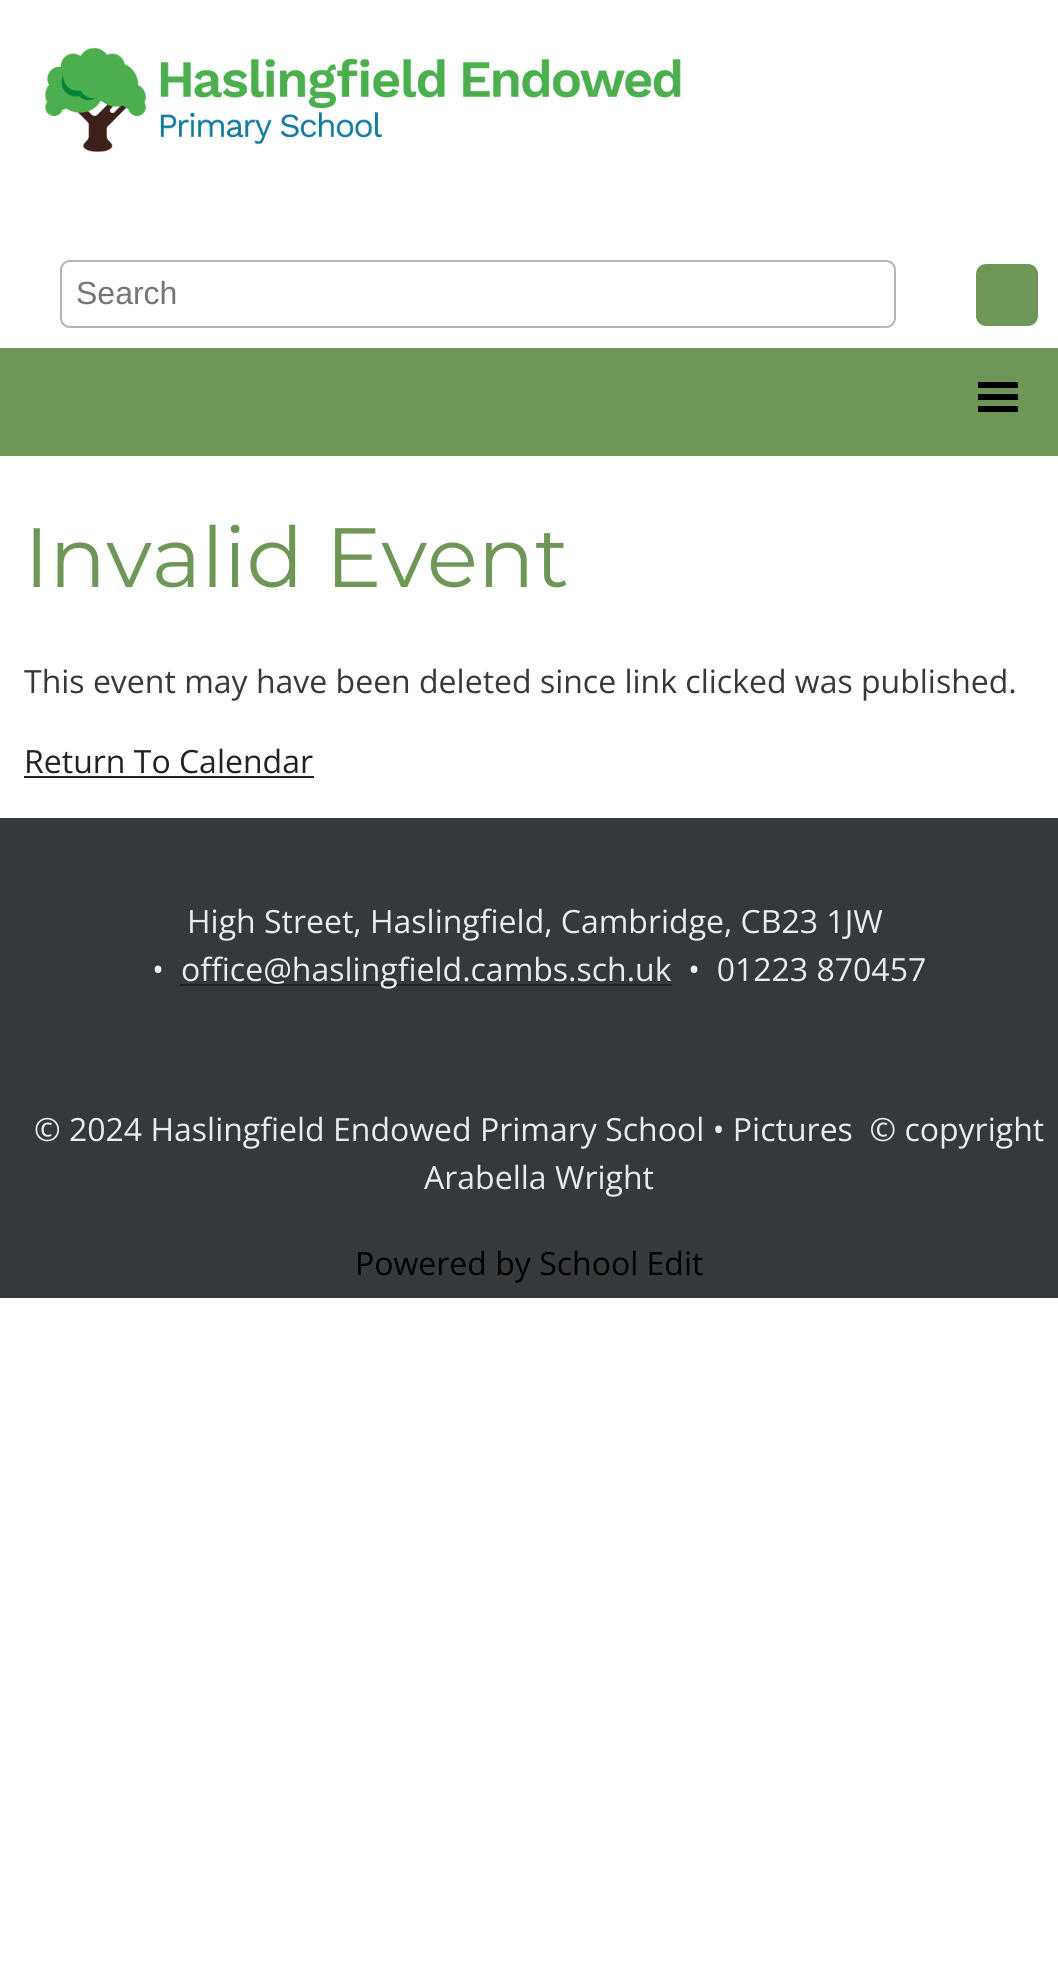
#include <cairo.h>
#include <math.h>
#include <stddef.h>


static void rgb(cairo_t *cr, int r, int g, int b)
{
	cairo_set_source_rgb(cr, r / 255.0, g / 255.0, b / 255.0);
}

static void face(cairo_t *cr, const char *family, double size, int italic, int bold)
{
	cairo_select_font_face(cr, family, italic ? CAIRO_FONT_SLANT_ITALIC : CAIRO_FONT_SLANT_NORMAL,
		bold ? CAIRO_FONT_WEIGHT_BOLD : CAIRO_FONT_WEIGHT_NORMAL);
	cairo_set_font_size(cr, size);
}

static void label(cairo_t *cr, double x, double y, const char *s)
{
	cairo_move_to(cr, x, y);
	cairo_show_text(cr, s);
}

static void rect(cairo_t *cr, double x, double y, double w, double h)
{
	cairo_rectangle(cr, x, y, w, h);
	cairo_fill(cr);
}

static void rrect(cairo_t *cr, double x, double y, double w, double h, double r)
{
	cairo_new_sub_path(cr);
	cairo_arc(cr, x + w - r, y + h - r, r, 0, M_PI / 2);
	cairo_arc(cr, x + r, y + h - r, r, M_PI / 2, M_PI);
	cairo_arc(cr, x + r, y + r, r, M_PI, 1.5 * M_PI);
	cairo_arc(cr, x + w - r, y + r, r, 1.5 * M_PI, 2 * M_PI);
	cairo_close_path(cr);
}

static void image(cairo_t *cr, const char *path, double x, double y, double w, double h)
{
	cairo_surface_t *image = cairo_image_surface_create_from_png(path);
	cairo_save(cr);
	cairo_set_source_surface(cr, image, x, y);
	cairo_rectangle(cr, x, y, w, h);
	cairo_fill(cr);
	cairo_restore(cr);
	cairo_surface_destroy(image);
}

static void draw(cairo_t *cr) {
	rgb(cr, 255, 255, 255);
	cairo_paint(cr);
	image(cr, "image0.png", 45, 47, 636, 105);
	rrect(cr, 61, 261, 834, 66, 9);
	rgb(cr, 179, 181, 182);
	cairo_stroke(cr);
	face(cr, "Liberation Sans", 32, 0, 0);
	rgb(cr, 117, 117, 117);
	label(cr, 76, 304, "Search");
	rgb(cr, 109, 150, 87);
	rrect(cr, 976, 264, 62, 62, 10);
	cairo_fill(cr);
	rect(cr, 0, 348, 1058, 108);
	rgb(cr, 0, 0, 0);
	rect(cr, 978, 382, 40, 6);
	rect(cr, 978, 394, 40, 6);
	rect(cr, 978, 406, 40, 6);
	face(cr, "Montserrat", 84, 0, 0);
	rgb(cr, 109, 150, 87);
	label(cr, 24, 587, "Invalid Event");
	face(cr, "Open Sans", 32, 0, 0);
	rgb(cr, 54, 57, 59);
	label(cr, 24, 693, "This event may have been deleted since link clicked was published.");
	rgb(cr, 34, 34, 34);
	label(cr, 24, 773, "Return To Calendar");
	rect(cr, 24, 776, 290, 2);
	rgb(cr, 54, 57, 59);
	rect(cr, 0, 818, 1058, 480);
	rgb(cr, 231, 236, 239);
	label(cr, 187, 933, "High Street, Haslingfield, Cambridge, CB23 1JW");
	label(cr, 152, 981, "•");
	rgb(cr, 34, 34, 34);
	rect(cr, 180, 984, 492, 2);
	rgb(cr, 231, 236, 239);
	label(cr, 181, 981, "office@haslingfield.cambs.sch.uk");
	label(cr, 688, 981, "•  01223 870457");
	label(cr, 34, 1141, "© 2024 Haslingfield Endowed Primary School • Pictures  © copyright");
	label(cr, 424, 1189, "Arabella Wright");
	rgb(cr, 0, 0, 0);
	label(cr, 355, 1275, "Powered by School Edit");
}

int main(void) {
	cairo_surface_t *surface = cairo_image_surface_create(CAIRO_FORMAT_RGB24, 1058, 1961);
	cairo_t *cr = cairo_create(surface);
	cairo_font_options_t *options = cairo_font_options_create();
	cairo_font_options_set_hint_metrics(options, CAIRO_HINT_METRICS_OFF);
	cairo_font_options_set_hint_style(options, CAIRO_HINT_STYLE_NONE);
	cairo_set_font_options(cr, options);
	cairo_set_miter_limit(cr, 4);
	draw(cr);
	cairo_surface_write_to_png(surface, "render.png");
	cairo_font_options_destroy(options);
	cairo_destroy(cr);
	cairo_surface_destroy(surface);
	return 0;
}
